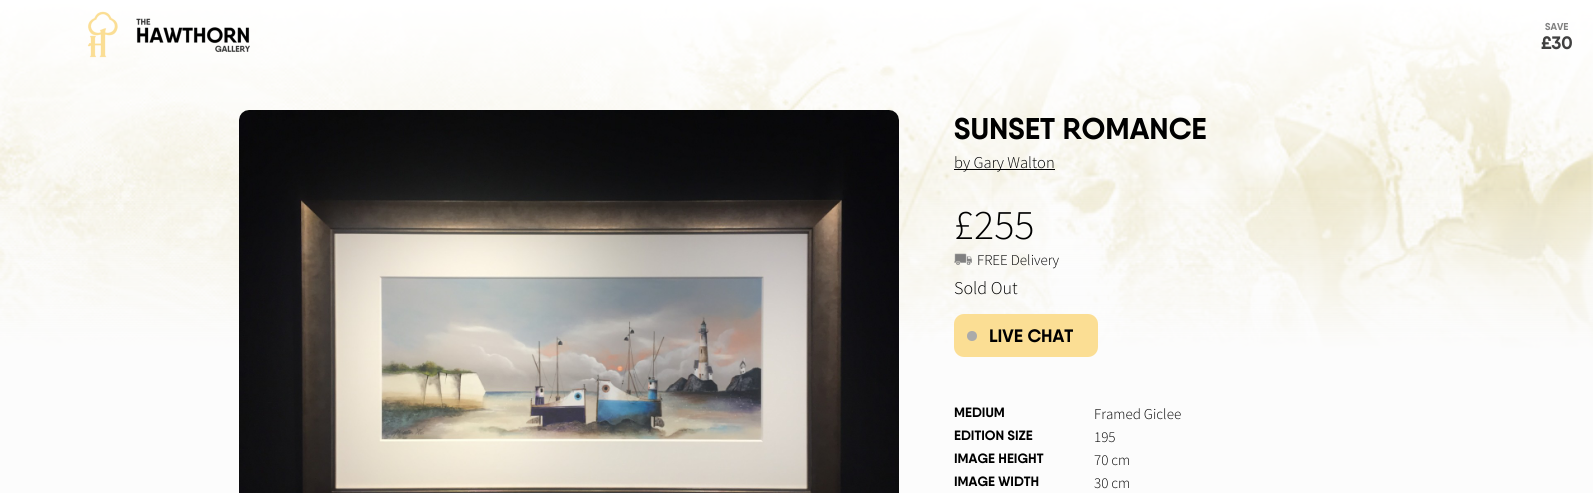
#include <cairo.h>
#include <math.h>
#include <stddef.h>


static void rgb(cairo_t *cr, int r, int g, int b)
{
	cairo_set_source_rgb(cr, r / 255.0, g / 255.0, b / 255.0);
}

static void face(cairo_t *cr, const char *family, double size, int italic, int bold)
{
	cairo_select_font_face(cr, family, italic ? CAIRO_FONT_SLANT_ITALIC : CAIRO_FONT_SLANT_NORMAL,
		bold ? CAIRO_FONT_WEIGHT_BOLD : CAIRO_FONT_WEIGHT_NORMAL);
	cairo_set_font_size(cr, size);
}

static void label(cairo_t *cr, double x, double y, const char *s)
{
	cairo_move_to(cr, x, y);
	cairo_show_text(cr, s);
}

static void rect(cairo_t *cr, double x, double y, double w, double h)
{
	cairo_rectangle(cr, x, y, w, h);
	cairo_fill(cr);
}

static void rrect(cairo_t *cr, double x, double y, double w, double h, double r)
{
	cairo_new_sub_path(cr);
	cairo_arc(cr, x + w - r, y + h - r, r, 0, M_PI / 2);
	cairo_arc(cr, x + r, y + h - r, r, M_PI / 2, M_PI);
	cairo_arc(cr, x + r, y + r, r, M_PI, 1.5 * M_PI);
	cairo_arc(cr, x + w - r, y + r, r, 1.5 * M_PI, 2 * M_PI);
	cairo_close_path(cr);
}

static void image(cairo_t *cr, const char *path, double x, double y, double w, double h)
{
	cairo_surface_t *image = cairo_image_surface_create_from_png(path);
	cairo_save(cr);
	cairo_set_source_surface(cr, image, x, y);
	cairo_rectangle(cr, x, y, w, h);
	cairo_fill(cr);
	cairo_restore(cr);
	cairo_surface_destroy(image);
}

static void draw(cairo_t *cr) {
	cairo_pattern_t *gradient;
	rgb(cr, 252, 252, 252);
	cairo_paint(cr);
	image(cr, "image1.png", 0, 1, 1593, 348);
	gradient = cairo_pattern_create_linear(797, 0, 797, 350);
	cairo_pattern_add_color_stop_rgba(gradient, 0, 1, 1, 1, 1);
	cairo_pattern_add_color_stop_rgba(gradient, 0.5, 1, 1, 1, 0);
	cairo_pattern_add_color_stop_rgba(gradient, 0.5, 0.988, 0.988, 0.988, 0);
	cairo_pattern_add_color_stop_rgba(gradient, 1, 0.988, 0.988, 0.988, 1);
	cairo_set_source(cr, gradient);
	cairo_pattern_destroy(gradient);
	rect(cr, 0, 0, 1593, 349);
	face(cr, "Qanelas", 10, 0, 1);
	rgb(cr, 128, 128, 128);
	label(cr, 1545, 30, "SAVE");
	face(cr, "Qanelas", 18, 0, 1);
	rgb(cr, 64, 64, 64);
	label(cr, 1541, 49, "£30");
	image(cr, "image0.png", 87, 11, 163, 47);
	image(cr, "image2.png", 239, 110, 660, 383);
	face(cr, "Qanelas", 30, 0, 1);
	rgb(cr, 0, 0, 0);
	label(cr, 954, 139, "SUNSET ROMANCE");
	rect(cr, 954, 169, 101, 1);
	face(cr, "Source Sans Pro Light", 16.5, 0, 0);
	label(cr, 954, 168, "by Gary Walton");
	face(cr, "Source Sans Pro Light", 42, 0, 0);
	label(cr, 954, 239, "£255");
	image(cr, "image3.png", 954, 253, 18, 12);
	face(cr, "Source Sans Pro Light", 15, 0, 0);
	label(cr, 977, 265, "FREE Delivery");
	face(cr, "Source Sans Pro Light", 18, 0, 0);
	label(cr, 954, 294, "Sold Out");
	rgb(cr, 251, 222, 148);
	rrect(cr, 954, 314, 144, 43, 10);
	cairo_fill(cr);
	rgb(cr, 170, 170, 170);
	cairo_arc(cr, 972, 336, 5, 0, 2 * M_PI);
	cairo_fill(cr);
	face(cr, "Qanelas", 18, 0, 1);
	rgb(cr, 0, 0, 0);
	label(cr, 989, 342, "LIVE CHAT");
	face(cr, "Qanelas", 13.5, 0, 1);
	label(cr, 954, 417, "MEDIUM");
	face(cr, "Source Sans Pro Light", 15, 0, 0);
	label(cr, 1094, 419, "Framed Giclee");
	face(cr, "Qanelas", 13.5, 0, 1);
	label(cr, 954, 440, "EDITION SIZE");
	face(cr, "Source Sans Pro Light", 15, 0, 0);
	label(cr, 1094, 442, "195");
	face(cr, "Qanelas", 13.5, 0, 1);
	label(cr, 954, 463, "IMAGE HEIGHT");
	face(cr, "Source Sans Pro Light", 15, 0, 0);
	label(cr, 1094, 465, "70 cm");
	face(cr, "Qanelas", 13.5, 0, 1);
	label(cr, 954, 486, "IMAGE WIDTH");
	face(cr, "Source Sans Pro Light", 15, 0, 0);
	label(cr, 1094, 488, "30 cm");
}

int main(void) {
	cairo_surface_t *surface = cairo_image_surface_create(CAIRO_FORMAT_RGB24, 1593, 493);
	cairo_t *cr = cairo_create(surface);
	cairo_font_options_t *options = cairo_font_options_create();
	cairo_font_options_set_hint_metrics(options, CAIRO_HINT_METRICS_OFF);
	cairo_font_options_set_hint_style(options, CAIRO_HINT_STYLE_NONE);
	cairo_set_font_options(cr, options);
	cairo_set_miter_limit(cr, 4);
	draw(cr);
	cairo_surface_write_to_png(surface, "render.png");
	cairo_font_options_destroy(options);
	cairo_destroy(cr);
	cairo_surface_destroy(surface);
	return 0;
}
